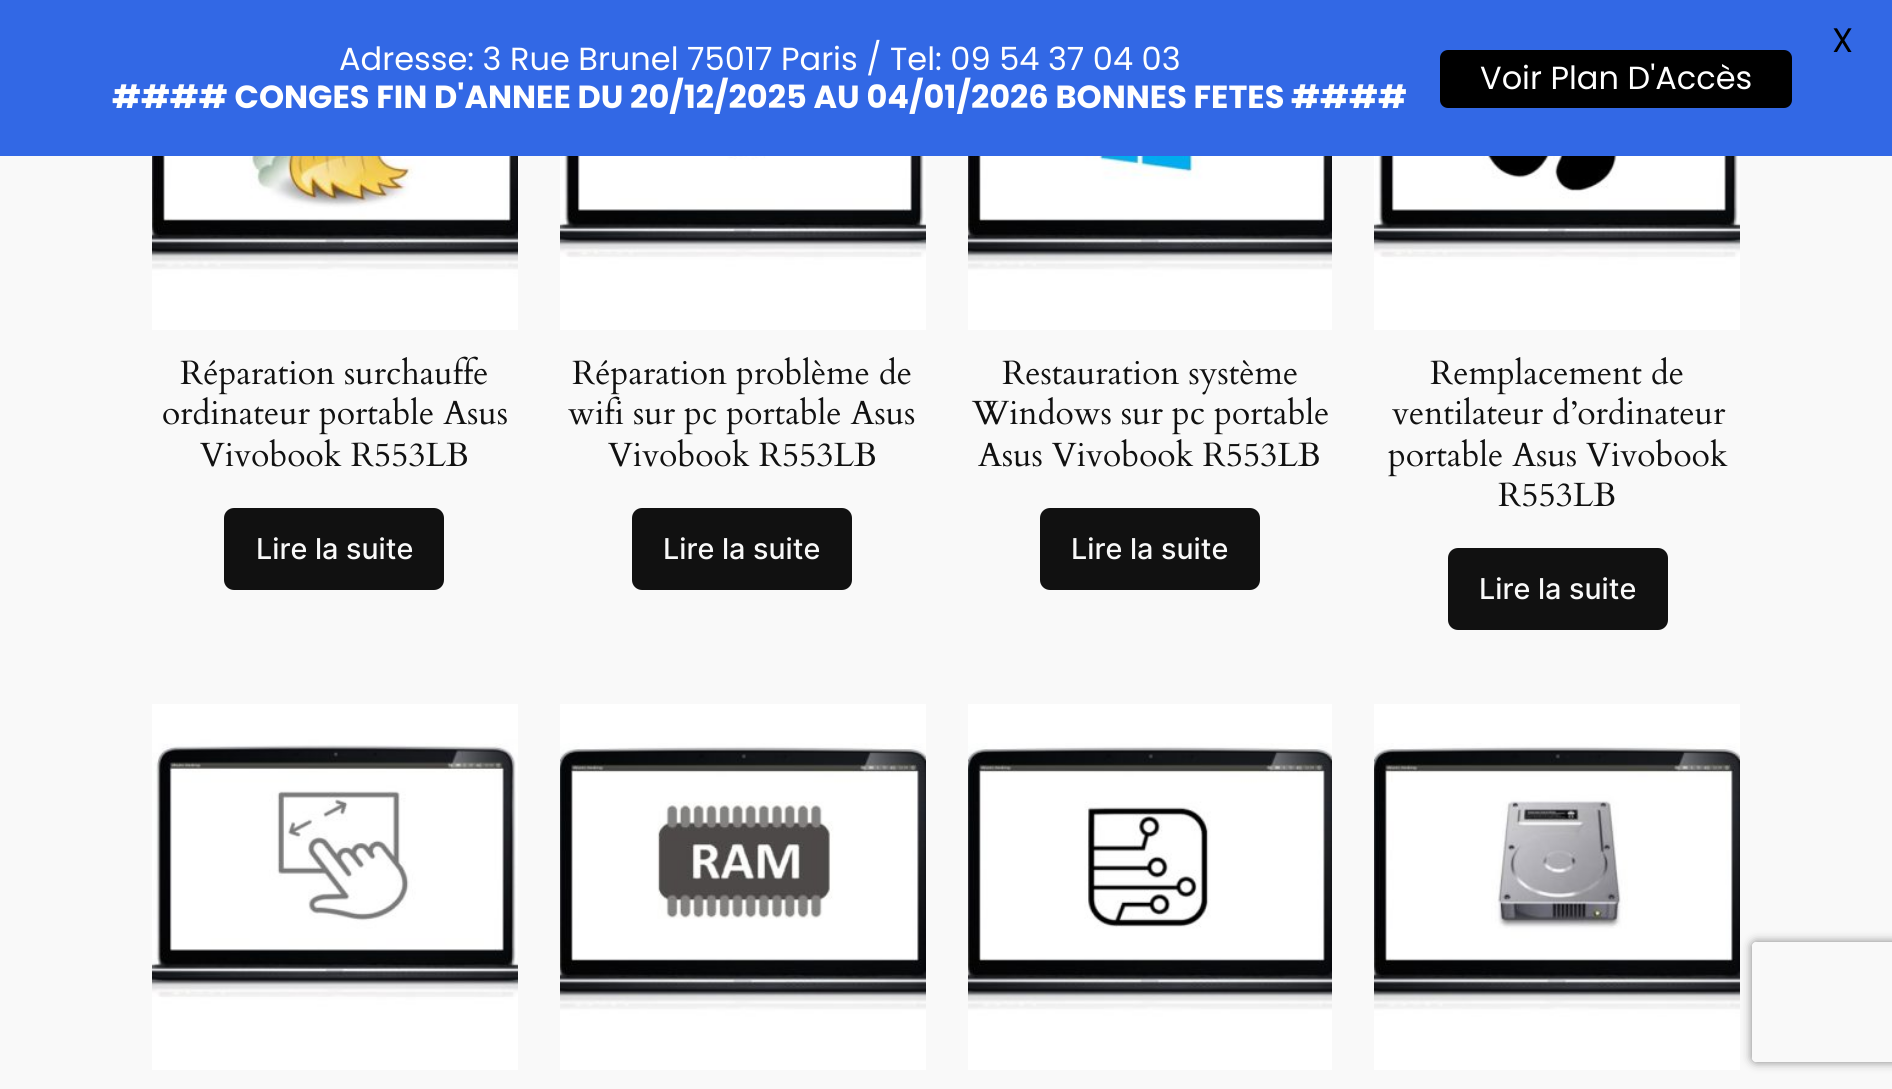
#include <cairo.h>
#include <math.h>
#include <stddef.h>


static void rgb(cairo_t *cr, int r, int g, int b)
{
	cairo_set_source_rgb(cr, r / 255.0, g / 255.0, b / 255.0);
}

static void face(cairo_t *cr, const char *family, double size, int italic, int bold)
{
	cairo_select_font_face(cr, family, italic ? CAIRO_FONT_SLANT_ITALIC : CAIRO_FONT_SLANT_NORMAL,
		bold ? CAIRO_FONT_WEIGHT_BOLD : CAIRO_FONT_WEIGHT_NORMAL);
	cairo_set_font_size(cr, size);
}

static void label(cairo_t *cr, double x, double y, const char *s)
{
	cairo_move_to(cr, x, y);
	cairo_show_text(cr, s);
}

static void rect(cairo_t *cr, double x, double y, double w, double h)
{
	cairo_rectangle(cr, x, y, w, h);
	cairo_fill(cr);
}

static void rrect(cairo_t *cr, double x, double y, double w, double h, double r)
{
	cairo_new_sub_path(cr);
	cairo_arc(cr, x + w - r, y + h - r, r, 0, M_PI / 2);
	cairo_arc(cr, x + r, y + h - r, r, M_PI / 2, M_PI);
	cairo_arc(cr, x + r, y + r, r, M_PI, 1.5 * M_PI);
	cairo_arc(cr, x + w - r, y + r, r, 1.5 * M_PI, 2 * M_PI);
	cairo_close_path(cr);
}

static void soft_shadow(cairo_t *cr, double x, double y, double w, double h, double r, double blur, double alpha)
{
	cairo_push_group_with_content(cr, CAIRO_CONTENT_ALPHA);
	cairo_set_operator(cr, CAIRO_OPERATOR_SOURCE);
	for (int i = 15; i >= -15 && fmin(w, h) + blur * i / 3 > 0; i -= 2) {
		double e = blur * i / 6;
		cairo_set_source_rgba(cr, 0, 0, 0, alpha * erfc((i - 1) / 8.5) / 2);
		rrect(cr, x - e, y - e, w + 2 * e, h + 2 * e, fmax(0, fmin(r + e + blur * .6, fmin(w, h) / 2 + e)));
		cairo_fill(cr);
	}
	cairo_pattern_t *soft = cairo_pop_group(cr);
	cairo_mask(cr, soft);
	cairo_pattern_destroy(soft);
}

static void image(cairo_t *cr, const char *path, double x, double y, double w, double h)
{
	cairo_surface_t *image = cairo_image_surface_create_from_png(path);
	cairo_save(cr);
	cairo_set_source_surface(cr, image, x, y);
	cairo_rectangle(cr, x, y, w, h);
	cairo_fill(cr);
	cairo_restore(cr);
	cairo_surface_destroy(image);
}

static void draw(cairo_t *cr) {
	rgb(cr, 249, 249, 249);
	cairo_paint(cr);
	rgb(cr, 50, 104, 229);
	rect(cr, 0, 0, 1892, 156);
	face(cr, "Poppins", 32, 0, 0);
	rgb(cr, 255, 255, 255);
	label(cr, 339, 70, "Adresse: 3 Rue Brunel 75017 Paris / Tel: 09 54 37 04 03");
	face(cr, "Poppins", 32, 0, 1);
	label(cr, 112, 108, "#### CONGES FIN D'ANNEE DU 20/12/2025 AU 04/01/2026 BONNES FETES ####");
	rgb(cr, 0, 0, 0);
	rrect(cr, 1440, 50, 352, 58, 8);
	cairo_fill(cr);
	face(cr, "Poppins", 32, 0, 0);
	rgb(cr, 255, 255, 255);
	label(cr, 1480, 89, "Voir Plan D'Accès");
	face(cr, "Poppins", 34, 0, 0);
	rgb(cr, 0, 0, 0);
	label(cr, 1832, 52, "X");
	image(cr, "image0.png", 152, 156, 366, 174);
	image(cr, "image1.png", 180, 356, 307, 39);
	image(cr, "image2.png", 163, 397, 344, 38);
	image(cr, "image3.png", 200, 439, 267, 28);
	rgb(cr, 17, 17, 17);
	rrect(cr, 224, 508, 220, 82, 10);
	cairo_fill(cr);
	face(cr, "Inter Medium", 28.75, 0, 0);
	rgb(cr, 249, 249, 249);
	label(cr, 256, 559, "Lire la suite");
	image(cr, "image4.png", 560, 156, 366, 174);
	image(cr, "image5.png", 572, 357, 339, 38);
	image(cr, "image6.png", 568, 396, 347, 39);
	image(cr, "image7.png", 608, 439, 267, 28);
	rgb(cr, 17, 17, 17);
	rrect(cr, 632, 508, 220, 82, 10);
	cairo_fill(cr);
	rgb(cr, 249, 249, 249);
	label(cr, 663, 559, "Lire la suite");
	image(cr, "image8.png", 968, 156, 364, 174);
	image(cr, "image9.png", 1002, 360, 295, 35);
	image(cr, "image10.png", 971, 397, 357, 38);
	image(cr, "image11.png", 978, 439, 341, 28);
	rgb(cr, 17, 17, 17);
	rrect(cr, 1040, 508, 220, 82, 10);
	cairo_fill(cr);
	rgb(cr, 249, 249, 249);
	label(cr, 1071, 559, "Lire la suite");
	image(cr, "image12.png", 1374, 156, 366, 174);
	image(cr, "image13.png", 1430, 357, 253, 38);
	image(cr, "image14.png", 1392, 397, 334, 28);
	image(cr, "image15.png", 1388, 439, 340, 38);
	image(cr, "image16.png", 1498, 482, 117, 25);
	rgb(cr, 17, 17, 17);
	rrect(cr, 1448, 548, 220, 82, 10);
	cairo_fill(cr);
	rgb(cr, 249, 249, 249);
	label(cr, 1479, 599, "Lire la suite");
	image(cr, "image17.png", 152, 704, 366, 366);
	image(cr, "image18.png", 560, 704, 366, 366);
	image(cr, "image19.png", 968, 704, 364, 366);
	image(cr, "image20.png", 1374, 704, 366, 366);
	cairo_save(cr);
	cairo_set_fill_rule(cr, CAIRO_FILL_RULE_EVEN_ODD);
	cairo_new_path(cr);
	cairo_move_to(cr, 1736, 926);
	cairo_line_to(cr, 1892, 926);
	cairo_line_to(cr, 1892, 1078);
	cairo_line_to(cr, 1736, 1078);
	cairo_close_path(cr);
	cairo_move_to(cr, 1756, 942);
	cairo_line_to(cr, 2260, 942);
	cairo_curve_to(cr, 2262, 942, 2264, 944, 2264, 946);
	cairo_line_to(cr, 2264, 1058);
	cairo_curve_to(cr, 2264, 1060, 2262, 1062, 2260, 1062);
	cairo_line_to(cr, 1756, 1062);
	cairo_curve_to(cr, 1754, 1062, 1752, 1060, 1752, 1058);
	cairo_line_to(cr, 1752, 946);
	cairo_curve_to(cr, 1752, 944, 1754, 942, 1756, 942);
	cairo_close_path(cr);
	cairo_clip(cr);
	rgb(cr, 128, 128, 128);
	soft_shadow(cr, 1752, 942, 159, 120, 4, 5, 1);
	cairo_restore(cr);
}

int main(void) {
	cairo_surface_t *surface = cairo_image_surface_create(CAIRO_FORMAT_RGB24, 1892, 1089);
	cairo_t *cr = cairo_create(surface);
	cairo_font_options_t *options = cairo_font_options_create();
	cairo_font_options_set_hint_metrics(options, CAIRO_HINT_METRICS_OFF);
	cairo_font_options_set_hint_style(options, CAIRO_HINT_STYLE_NONE);
	cairo_set_font_options(cr, options);
	cairo_set_miter_limit(cr, 4);
	draw(cr);
	cairo_surface_write_to_png(surface, "render.png");
	cairo_font_options_destroy(options);
	cairo_destroy(cr);
	cairo_surface_destroy(surface);
	return 0;
}
